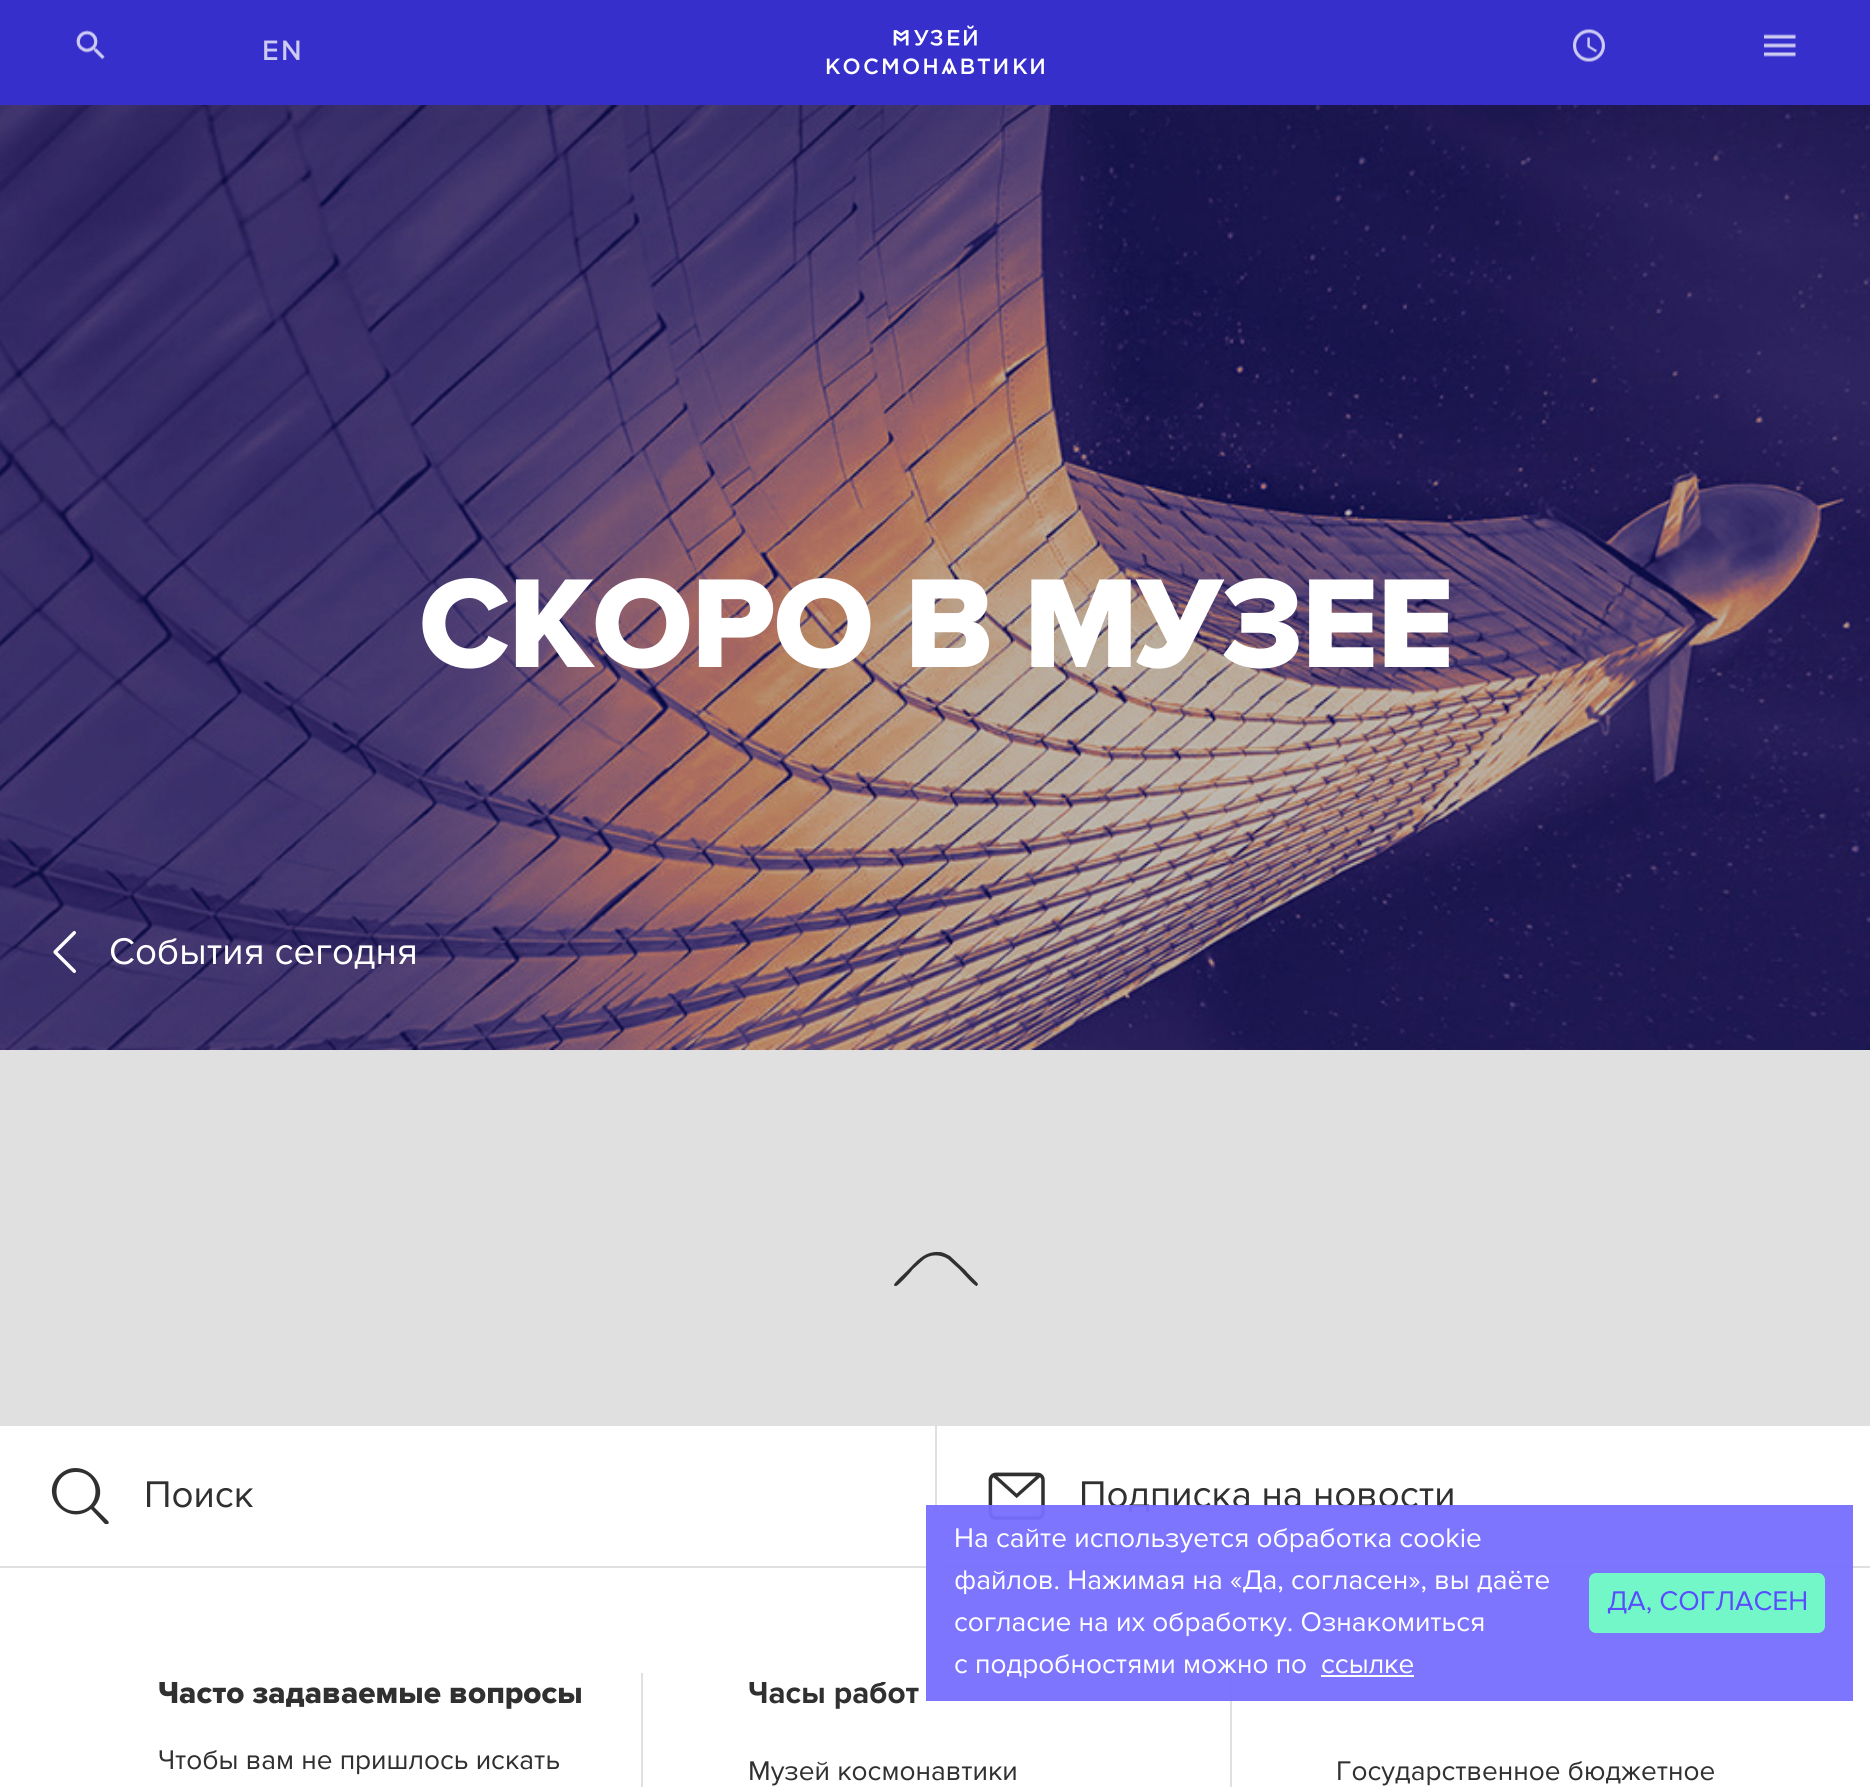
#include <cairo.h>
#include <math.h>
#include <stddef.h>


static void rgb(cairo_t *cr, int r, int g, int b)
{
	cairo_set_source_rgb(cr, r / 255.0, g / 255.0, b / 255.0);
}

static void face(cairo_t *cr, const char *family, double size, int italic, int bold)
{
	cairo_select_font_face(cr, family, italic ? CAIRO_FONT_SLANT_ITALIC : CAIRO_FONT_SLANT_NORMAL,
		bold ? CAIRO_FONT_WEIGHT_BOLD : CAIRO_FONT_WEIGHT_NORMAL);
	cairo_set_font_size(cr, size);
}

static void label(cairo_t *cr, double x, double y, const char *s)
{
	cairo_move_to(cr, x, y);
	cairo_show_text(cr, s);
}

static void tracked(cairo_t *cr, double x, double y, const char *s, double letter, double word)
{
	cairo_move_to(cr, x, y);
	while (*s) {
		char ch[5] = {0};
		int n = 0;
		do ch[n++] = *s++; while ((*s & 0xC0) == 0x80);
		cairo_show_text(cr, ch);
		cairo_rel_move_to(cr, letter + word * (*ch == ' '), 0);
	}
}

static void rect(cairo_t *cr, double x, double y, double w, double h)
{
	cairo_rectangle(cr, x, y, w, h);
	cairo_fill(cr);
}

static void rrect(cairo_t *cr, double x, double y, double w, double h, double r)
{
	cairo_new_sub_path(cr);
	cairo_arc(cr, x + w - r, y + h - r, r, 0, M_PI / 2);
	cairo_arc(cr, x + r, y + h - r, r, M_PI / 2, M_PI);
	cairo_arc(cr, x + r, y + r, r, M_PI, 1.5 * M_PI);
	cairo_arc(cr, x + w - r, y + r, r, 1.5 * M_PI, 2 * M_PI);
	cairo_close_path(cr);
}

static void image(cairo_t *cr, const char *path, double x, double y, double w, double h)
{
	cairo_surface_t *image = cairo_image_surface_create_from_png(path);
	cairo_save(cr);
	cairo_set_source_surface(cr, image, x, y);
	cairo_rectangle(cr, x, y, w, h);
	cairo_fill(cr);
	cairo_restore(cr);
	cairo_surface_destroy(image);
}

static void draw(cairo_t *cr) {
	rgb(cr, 224, 224, 224);
	cairo_paint(cr);
	rgb(cr, 55, 47, 203);
	rect(cr, 0, 0, 1870, 105);
	image(cr, "image0.png", 76, 30, 29, 30);
	face(cr, "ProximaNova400", 28, 0, 1);
	rgb(cr, 205, 203, 242);
	tracked(cr, 262, 60, "EN", 3, 0);
	image(cr, "image1.png", 826, 25, 218, 50);
	image(cr, "image2.png", 1573, 29, 32, 33);
	image(cr, "image3.png", 1764, 34, 32, 23);
	image(cr, "image4.png", 0, 105, 1870, 945);
	face(cr, "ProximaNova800 ExtraBold", 131.25, 0, 0);
	rgb(cr, 255, 255, 255);
	tracked(cr, 419, 667, "СКОРО В МУЗЕЕ", -1.75, 0);
	image(cr, "image5.png", 53, 931, 24, 42);
	face(cr, "ProximaNova400", 38.5, 0, 0);
	label(cr, 109, 964, "События сегодня");
	rgb(cr, 48, 48, 48);
	cairo_new_path(cr);
	cairo_move_to(cr, 894, 1285);
	cairo_curve_to(cr, 894, 1286, 895, 1286, 896, 1286);
	cairo_curve_to(cr, 898, 1286, 911, 1272, 913, 1269);
	cairo_line_to(cr, 923, 1260);
	cairo_curve_to(cr, 930, 1254, 940, 1254, 948, 1259);
	cairo_line_to(cr, 959, 1269);
	cairo_curve_to(cr, 962, 1272, 975, 1287, 977, 1286);
	cairo_line_to(cr, 978, 1284);
	cairo_curve_to(cr, 978, 1283, 967, 1273, 966, 1271);
	cairo_line_to(cr, 950, 1256);
	cairo_curve_to(cr, 946, 1254, 943, 1252, 939, 1252);
	cairo_curve_to(cr, 924, 1251, 916, 1262, 907, 1271);
	cairo_curve_to(cr, 905, 1273, 894, 1283, 894, 1285);
	cairo_close_path(cr);
	cairo_fill(cr);
	rgb(cr, 255, 255, 255);
	rect(cr, 0, 1426, 1870, 361);
	rgb(cr, 224, 224, 224);
	rect(cr, 935, 1426, 2, 140);
	rgb(cr, 48, 48, 48);
	cairo_new_path(cr);
	cairo_move_to(cr, 108, 1524);
	cairo_curve_to(cr, 107, 1524, 106, 1524, 105, 1524);
	cairo_line_to(cr, 91, 1509);
	cairo_curve_to(cr, 68, 1527, 38, 1496, 59, 1475);
	cairo_curve_to(cr, 81, 1454, 114, 1485, 94, 1507);
	cairo_line_to(cr, 108, 1521);
	cairo_curve_to(cr, 109, 1522, 109, 1523, 108, 1524);
	cairo_close_path(cr);
	cairo_move_to(cr, 76, 1472);
	cairo_curve_to(cr, 50, 1472, 50, 1511, 76, 1511);
	cairo_curve_to(cr, 102, 1511, 102, 1472, 76, 1472);
	cairo_close_path(cr);
	cairo_fill(cr);
	label(cr, 144, 1507, "Поиск");
	image(cr, "image6.png", 988, 1472, 57, 48);
	label(cr, 1079, 1507, "Подписка на новости");
	rgb(cr, 224, 224, 224);
	rect(cr, 0, 1566, 1870, 2);
	face(cr, "ProximaNova800 ExtraBold", 31.5, 0, 0);
	rgb(cr, 48, 48, 48);
	label(cr, 158, 1703, "Часто задаваемые вопросы");
	face(cr, "ProximaNova400", 28, 0, 0);
	label(cr, 158, 1769, "Чтобы вам не пришлось искать");
	rgb(cr, 224, 224, 224);
	rect(cr, 641, 1673, 2, 114);
	face(cr, "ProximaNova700", 31.5, 0, 1);
	rgb(cr, 48, 48, 48);
	label(cr, 748, 1703, "Часы работ");
	face(cr, "ProximaNova400", 28, 0, 0);
	label(cr, 748, 1780, "Музей космонавтики");
	rgb(cr, 224, 224, 224);
	rect(cr, 1230, 1673, 2, 114);
	rgb(cr, 48, 48, 48);
	label(cr, 1336, 1780, "Государственное бюджетное");
	cairo_set_source_rgba(cr, 0.471, 0.435, 1, 0.95);
	rect(cr, 926, 1505, 927, 196);
	rgb(cr, 255, 255, 255);
	label(cr, 954, 1547, "На сайте используется обработка cookie");
	label(cr, 954, 1589, "файлов. Нажимая на «Да, согласен», вы даёте");
	label(cr, 954, 1631, "согласие на их обработку. Ознакомиться");
	label(cr, 954, 1673, "с подробностями можно по");
	label(cr, 1321, 1673, "ссылке");
	rect(cr, 1321, 1675, 93, 2);
	rgb(cr, 115, 247, 200);
	rrect(cr, 1589, 1573, 236, 60, 7);
	cairo_fill(cr);
	rgb(cr, 89, 75, 255);
	label(cr, 1607, 1610, "ДА, СОГЛАСЕН");
}

int main(void) {
	cairo_surface_t *surface = cairo_image_surface_create(CAIRO_FORMAT_RGB24, 1870, 1787);
	cairo_t *cr = cairo_create(surface);
	cairo_font_options_t *options = cairo_font_options_create();
	cairo_font_options_set_hint_metrics(options, CAIRO_HINT_METRICS_OFF);
	cairo_font_options_set_hint_style(options, CAIRO_HINT_STYLE_NONE);
	cairo_set_font_options(cr, options);
	cairo_set_miter_limit(cr, 4);
	draw(cr);
	cairo_surface_write_to_png(surface, "render.png");
	cairo_font_options_destroy(options);
	cairo_destroy(cr);
	cairo_surface_destroy(surface);
	return 0;
}
